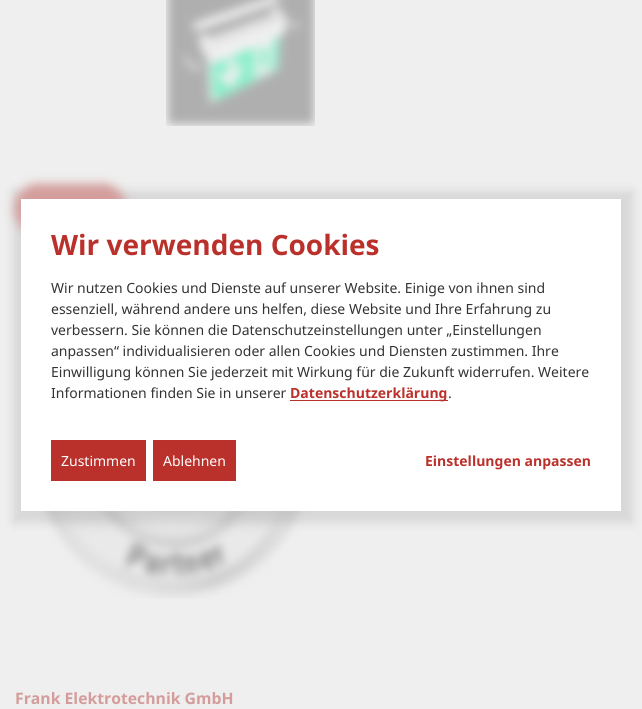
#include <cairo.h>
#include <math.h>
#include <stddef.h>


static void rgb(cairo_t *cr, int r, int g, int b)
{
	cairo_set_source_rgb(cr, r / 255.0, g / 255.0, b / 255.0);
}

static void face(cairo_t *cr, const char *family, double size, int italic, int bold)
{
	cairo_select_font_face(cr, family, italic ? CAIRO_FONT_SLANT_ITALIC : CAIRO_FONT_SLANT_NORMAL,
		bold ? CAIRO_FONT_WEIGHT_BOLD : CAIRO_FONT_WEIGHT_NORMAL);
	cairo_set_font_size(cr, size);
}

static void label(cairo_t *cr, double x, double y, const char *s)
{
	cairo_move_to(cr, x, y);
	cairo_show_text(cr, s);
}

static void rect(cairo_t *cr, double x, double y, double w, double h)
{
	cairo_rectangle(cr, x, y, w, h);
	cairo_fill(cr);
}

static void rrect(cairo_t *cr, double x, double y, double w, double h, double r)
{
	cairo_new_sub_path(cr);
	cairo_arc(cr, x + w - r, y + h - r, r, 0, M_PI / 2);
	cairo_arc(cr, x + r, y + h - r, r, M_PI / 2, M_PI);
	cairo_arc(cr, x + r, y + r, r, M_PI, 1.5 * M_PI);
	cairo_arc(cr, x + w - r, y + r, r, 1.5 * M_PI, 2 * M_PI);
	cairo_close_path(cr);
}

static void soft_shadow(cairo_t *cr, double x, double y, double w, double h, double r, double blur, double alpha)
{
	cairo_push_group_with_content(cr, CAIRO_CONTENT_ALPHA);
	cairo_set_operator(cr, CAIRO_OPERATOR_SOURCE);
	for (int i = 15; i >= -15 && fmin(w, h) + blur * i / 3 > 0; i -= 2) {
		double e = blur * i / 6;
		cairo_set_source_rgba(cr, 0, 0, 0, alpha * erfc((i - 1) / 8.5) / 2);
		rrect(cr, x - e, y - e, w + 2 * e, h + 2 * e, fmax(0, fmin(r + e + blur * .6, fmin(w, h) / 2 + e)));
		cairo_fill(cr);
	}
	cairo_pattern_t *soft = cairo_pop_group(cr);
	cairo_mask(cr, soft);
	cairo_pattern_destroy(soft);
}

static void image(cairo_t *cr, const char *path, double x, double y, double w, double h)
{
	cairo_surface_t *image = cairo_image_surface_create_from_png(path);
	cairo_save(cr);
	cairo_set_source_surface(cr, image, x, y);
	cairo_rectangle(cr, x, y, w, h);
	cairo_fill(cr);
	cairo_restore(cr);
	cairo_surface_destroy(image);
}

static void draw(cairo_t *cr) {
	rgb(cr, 239, 239, 239);
	cairo_paint(cr);
	image(cr, "image1.png", 39, 511, 268, 88);
	rgb(cr, 0, 0, 0);
	soft_shadow(cr, 13, 191, 620, 332, 0, 5, 0.1);
	rgb(cr, 212, 157, 155);
	soft_shadow(cr, 15, 184, 111, 50, 25, 5, 1);
	rgb(cr, 255, 255, 255);
	rect(cr, 21, 199, 600, 312);
	face(cr, "Noto Sans", 28, 0, 1);
	rgb(cr, 186, 48, 43);
	label(cr, 51, 255, "Wir verwenden Cookies");
	face(cr, "Noto Sans", 14, 0, 0);
	rgb(cr, 51, 51, 51);
	label(cr, 51, 293, "Wir nutzen Cookies und Dienste auf unserer Website. Einige von ihnen sind");
	label(cr, 51, 314, "essenziell, während andere uns helfen, diese Website und Ihre Erfahrung zu");
	label(cr, 51, 335, "verbessern. Sie können die Datenschutzeinstellungen unter „Einstellungen");
	label(cr, 51, 356, "anpassen“ individualisieren oder allen Cookies und Diensten zustimmen. Ihre");
	label(cr, 51, 377, "Einwilligung können Sie jederzeit mit Wirkung für die Zukunft widerrufen. Weitere");
	label(cr, 51, 398, "Informationen finden Sie in unserer");
	rgb(cr, 186, 48, 43);
	rect(cr, 290, 400, 158, 1);
	face(cr, "Noto Sans", 14, 0, 1);
	label(cr, 290, 398, "Datenschutzerklärung");
	face(cr, "Noto Sans", 14, 0, 0);
	rgb(cr, 51, 51, 51);
	label(cr, 448, 398, ".");
	rgb(cr, 186, 48, 43);
	rect(cr, 51, 440, 95, 41);
	rgb(cr, 255, 255, 255);
	label(cr, 61, 466, "Zustimmen");
	rgb(cr, 186, 48, 43);
	rect(cr, 153, 440, 83, 41);
	rgb(cr, 255, 255, 255);
	label(cr, 163, 466, "Ablehnen");
	face(cr, "Noto Sans", 14, 0, 1);
	rgb(cr, 186, 48, 43);
	label(cr, 425, 466, "Einstellungen anpassen");
	image(cr, "image0.png", 166, 0, 149, 126);
	face(cr, "Noto Sans", 15.75, 0, 1);
	rgb(cr, 212, 157, 155);
	label(cr, 15, 704, "Frank Elektrotechnik GmbH");
}

int main(void) {
	cairo_surface_t *surface = cairo_image_surface_create(CAIRO_FORMAT_RGB24, 642, 709);
	cairo_t *cr = cairo_create(surface);
	cairo_font_options_t *options = cairo_font_options_create();
	cairo_font_options_set_hint_metrics(options, CAIRO_HINT_METRICS_OFF);
	cairo_font_options_set_hint_style(options, CAIRO_HINT_STYLE_NONE);
	cairo_set_font_options(cr, options);
	cairo_set_miter_limit(cr, 4);
	draw(cr);
	cairo_surface_write_to_png(surface, "render.png");
	cairo_font_options_destroy(options);
	cairo_destroy(cr);
	cairo_surface_destroy(surface);
	return 0;
}
